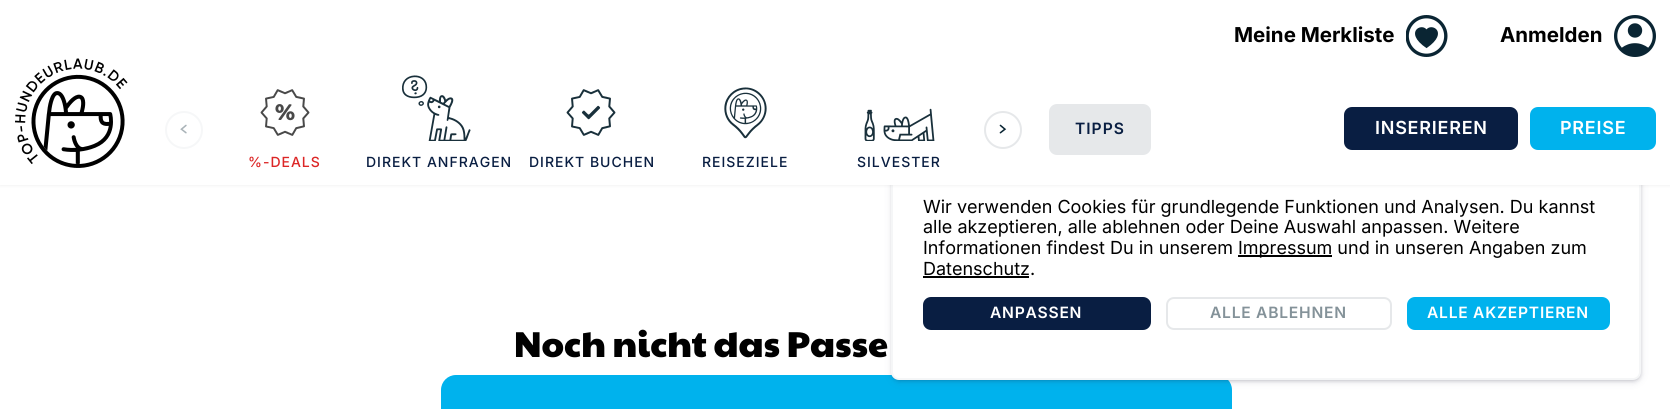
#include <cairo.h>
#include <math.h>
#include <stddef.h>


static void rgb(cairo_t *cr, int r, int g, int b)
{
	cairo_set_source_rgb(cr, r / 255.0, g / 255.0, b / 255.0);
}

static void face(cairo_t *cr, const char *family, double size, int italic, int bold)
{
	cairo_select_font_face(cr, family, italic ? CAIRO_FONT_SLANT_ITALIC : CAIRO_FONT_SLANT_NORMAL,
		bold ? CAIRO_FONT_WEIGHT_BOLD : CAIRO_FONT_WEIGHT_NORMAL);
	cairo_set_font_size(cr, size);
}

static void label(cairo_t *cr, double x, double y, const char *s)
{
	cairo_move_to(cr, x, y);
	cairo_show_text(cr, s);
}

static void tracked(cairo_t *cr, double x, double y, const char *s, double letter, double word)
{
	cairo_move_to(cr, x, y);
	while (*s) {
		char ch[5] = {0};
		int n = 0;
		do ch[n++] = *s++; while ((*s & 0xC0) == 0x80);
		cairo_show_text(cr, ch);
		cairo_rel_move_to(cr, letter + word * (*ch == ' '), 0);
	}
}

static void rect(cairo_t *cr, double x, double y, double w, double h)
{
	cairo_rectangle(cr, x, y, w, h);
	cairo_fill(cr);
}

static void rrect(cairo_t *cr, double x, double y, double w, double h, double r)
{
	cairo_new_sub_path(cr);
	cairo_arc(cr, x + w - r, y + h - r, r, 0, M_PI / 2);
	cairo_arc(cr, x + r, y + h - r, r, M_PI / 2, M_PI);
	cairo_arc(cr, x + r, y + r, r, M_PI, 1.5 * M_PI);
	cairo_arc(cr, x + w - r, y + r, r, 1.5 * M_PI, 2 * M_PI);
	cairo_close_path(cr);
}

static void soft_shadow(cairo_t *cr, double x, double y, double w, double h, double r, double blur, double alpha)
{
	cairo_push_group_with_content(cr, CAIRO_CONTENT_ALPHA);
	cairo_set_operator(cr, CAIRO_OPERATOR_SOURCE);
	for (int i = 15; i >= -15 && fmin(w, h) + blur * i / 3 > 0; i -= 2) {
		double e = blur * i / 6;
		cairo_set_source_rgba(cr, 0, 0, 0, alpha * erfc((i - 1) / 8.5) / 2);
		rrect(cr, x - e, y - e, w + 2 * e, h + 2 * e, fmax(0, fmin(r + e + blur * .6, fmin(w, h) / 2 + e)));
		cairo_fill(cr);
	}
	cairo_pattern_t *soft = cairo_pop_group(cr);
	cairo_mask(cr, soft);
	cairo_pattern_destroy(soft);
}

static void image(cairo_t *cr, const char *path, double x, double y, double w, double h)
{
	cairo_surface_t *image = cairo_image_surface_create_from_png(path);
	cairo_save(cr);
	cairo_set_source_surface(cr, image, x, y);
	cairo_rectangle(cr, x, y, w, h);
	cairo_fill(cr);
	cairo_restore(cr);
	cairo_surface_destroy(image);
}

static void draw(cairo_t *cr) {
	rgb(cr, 255, 255, 255);
	cairo_paint(cr);
	rgb(cr, 0, 178, 237);
	rrect(cr, 441, 375, 791, 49, 15);
	cairo_fill(cr);
	rgb(cr, 0, 0, 0);
	soft_shadow(cr, 893, 122, 747, 258, 6, 2, 0.2);
	rgb(cr, 50, 50, 93);
	soft_shadow(cr, 893, 123, 747, 258, 6, 4, 0.2);
	rgb(cr, 255, 255, 255);
	rrect(cr, 892, 120, 748, 259, 7);
	cairo_fill_preserve(cr);
	rgb(cr, 245, 246, 247);
	cairo_stroke(cr);
	rgb(cr, 0, 0, 0);
	soft_shadow(cr, 0, 0, 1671, 185, 0, 2, 0.08);
	rgb(cr, 255, 255, 255);
	rect(cr, 0, 0, 1670, 185);
	face(cr, "Inter", 20.5, 0, 1);
	rgb(cr, 0, 0, 0);
	label(cr, 1234, 42, "Meine Merkliste");
	image(cr, "image0.png", 1406, 15, 42, 42);
	label(cr, 1500, 42, "Anmelden");
	image(cr, "image1.png", 1614, 15, 42, 42);
	image(cr, "image2.png", 15, 58, 113, 110);
	rgb(cr, 230, 232, 234);
	rrect(cr, 1050, 105, 100, 49, 7);
	cairo_fill_preserve(cr);
	cairo_stroke(cr);
	face(cr, "Inter SemiBold", 15.6, 0, 0);
	rgb(cr, 9, 30, 66);
	tracked(cr, 1075, 134, "TIPPS", 1, 0);
	image(cr, "image3.png", 180, 124, 7, 10);
	cairo_arc(cr, 184, 130, 18, 0, 2 * M_PI);
	rgb(cr, 246, 247, 248);
	cairo_stroke(cr);
	image(cr, "image4.png", 999, 124, 8, 10);
	cairo_arc(cr, 1003, 130, 18, 0, 2 * M_PI);
	rgb(cr, 230, 232, 234);
	cairo_stroke(cr);
	image(cr, "image5.png", 260, 89, 50, 47);
	face(cr, "Inter Medium", 14, 0, 0);
	rgb(cr, 220, 38, 38);
	tracked(cr, 248, 167, "%-DEALS", 1, 0);
	image(cr, "image6.png", 402, 75, 69, 66);
	rgb(cr, 9, 30, 66);
	tracked(cr, 366, 167, "DIREKT ANFRAGEN", 1, 0);
	image(cr, "image7.png", 566, 89, 50, 47);
	tracked(cr, 529, 167, "DIREKT BUCHEN", 1, 0);
	image(cr, "image8.png", 724, 87, 43, 52);
	tracked(cr, 702, 167, "REISEZIELE", 1, 0);
	image(cr, "image9.png", 864, 108, 71, 33);
	tracked(cr, 857, 167, "SILVESTER", 1, 0);
	rrect(cr, 1344, 107, 174, 43, 8);
	cairo_fill(cr);
	face(cr, "Inter SemiBold", 18, 0, 0);
	rgb(cr, 255, 255, 255);
	tracked(cr, 1375, 134, "INSERIEREN", 0.75, 0);
	rgb(cr, 0, 178, 237);
	rrect(cr, 1530, 107, 126, 43, 8);
	cairo_fill(cr);
	rgb(cr, 255, 255, 255);
	tracked(cr, 1560, 134, "PREISE", 0.75, 0);
	face(cr, "Paytone One", 36, 0, 0);
	rgb(cr, 0, 0, 0);
	label(cr, 514, 357, "Noch nicht das Passe");
	face(cr, "Inter", 18, 0, 0);
	label(cr, 923, 213, "Wir verwenden Cookies für grundlegende Funktionen und Analysen. Du kannst");
	label(cr, 923, 233, "alle akzeptieren, alle ablehnen oder Deine Auswahl anpassen. Weitere");
	label(cr, 923, 254, "Informationen findest Du in unserem");
	rect(cr, 1238, 255, 94, 2);
	label(cr, 1238, 254, "Impressum und in unseren Angaben zum");
	label(cr, 923, 275, "Datenschutz.");
	rect(cr, 923, 276, 106, 2);
	rgb(cr, 9, 30, 66);
	rrect(cr, 923, 297, 228, 33, 8);
	cairo_fill(cr);
	face(cr, "Inter SemiBold", 15.6, 0, 0);
	rgb(cr, 255, 255, 255);
	tracked(cr, 990, 318, "ANPASSEN", 0.75, 0);
	rrect(cr, 1167, 298, 224, 31, 7);
	rgb(cr, 230, 232, 234);
	cairo_stroke(cr);
	rgb(cr, 132, 146, 153);
	tracked(cr, 1210, 318, "ALLE ABLEHNEN", 0.75, 0);
	rgb(cr, 0, 178, 237);
	rrect(cr, 1407, 297, 203, 33, 8);
	cairo_fill(cr);
	rgb(cr, 255, 255, 255);
	tracked(cr, 1427, 318, "ALLE AKZEPTIEREN", 0.75, 0);
}

int main(void) {
	cairo_surface_t *surface = cairo_image_surface_create(CAIRO_FORMAT_RGB24, 1670, 409);
	cairo_t *cr = cairo_create(surface);
	cairo_font_options_t *options = cairo_font_options_create();
	cairo_font_options_set_hint_metrics(options, CAIRO_HINT_METRICS_OFF);
	cairo_font_options_set_hint_style(options, CAIRO_HINT_STYLE_NONE);
	cairo_set_font_options(cr, options);
	cairo_set_miter_limit(cr, 4);
	draw(cr);
	cairo_surface_write_to_png(surface, "render.png");
	cairo_font_options_destroy(options);
	cairo_destroy(cr);
	cairo_surface_destroy(surface);
	return 0;
}
